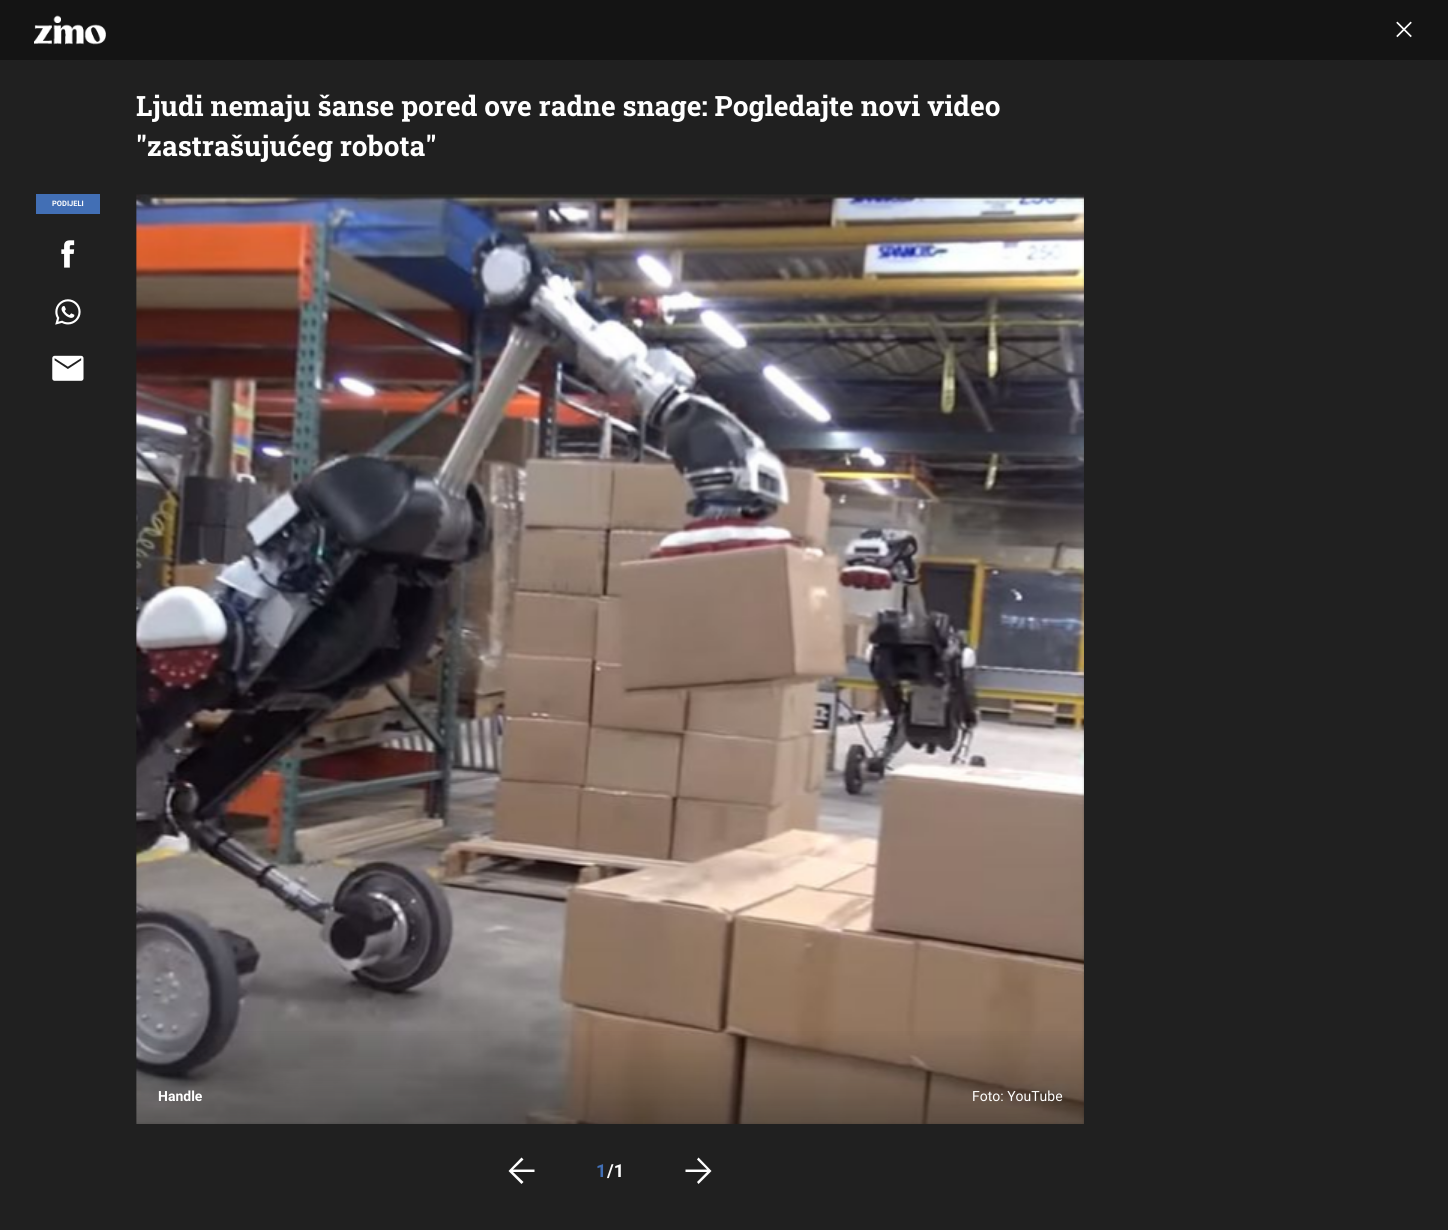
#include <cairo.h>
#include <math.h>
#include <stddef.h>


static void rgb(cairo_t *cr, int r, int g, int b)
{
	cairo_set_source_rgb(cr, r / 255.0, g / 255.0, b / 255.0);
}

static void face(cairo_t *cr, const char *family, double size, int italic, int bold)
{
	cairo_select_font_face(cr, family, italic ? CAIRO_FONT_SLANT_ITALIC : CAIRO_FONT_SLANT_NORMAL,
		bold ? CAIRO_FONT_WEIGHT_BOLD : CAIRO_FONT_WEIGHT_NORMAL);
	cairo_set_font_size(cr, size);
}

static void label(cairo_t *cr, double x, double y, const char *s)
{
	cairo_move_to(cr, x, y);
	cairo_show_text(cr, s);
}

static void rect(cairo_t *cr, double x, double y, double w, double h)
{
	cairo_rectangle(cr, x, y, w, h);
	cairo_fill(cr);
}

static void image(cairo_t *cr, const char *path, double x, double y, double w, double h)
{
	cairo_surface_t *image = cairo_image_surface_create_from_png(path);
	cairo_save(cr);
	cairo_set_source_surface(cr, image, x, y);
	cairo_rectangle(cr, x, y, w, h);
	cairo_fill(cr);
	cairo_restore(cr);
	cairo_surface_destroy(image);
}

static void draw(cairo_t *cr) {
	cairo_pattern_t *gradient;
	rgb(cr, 32, 32, 32);
	cairo_paint(cr);
	rgb(cr, 20, 20, 20);
	rect(cr, 0, 0, 1448, 60);
	image(cr, "image0.png", 34, 15, 72, 30);
	image(cr, "image1.png", 1396, 21, 16, 17);
	face(cr, "Roboto Slab", 28, 0, 1);
	rgb(cr, 255, 255, 255);
	label(cr, 136, 116, "Ljudi nemaju šanse pored ove radne snage: Pogledajte novi video");
	label(cr, 136, 156, "\"zastrašujućeg robota\"");
	rgb(cr, 66, 111, 181);
	rect(cr, 36, 194, 64, 20);
	face(cr, "Roboto", 7.5, 0, 1);
	rgb(cr, 255, 255, 255);
	label(cr, 52, 206, "PODIJELI");
	image(cr, "image2.png", 61, 240, 14, 28);
	image(cr, "image3.png", 55, 299, 26, 26);
	image(cr, "image4.png", 52, 355, 32, 26);
	image(cr, "image5.png", 136, 194, 948, 930);
	gradient = cairo_pattern_create_linear(610, 1124, 610, 1026);
	cairo_pattern_add_color_stop_rgba(gradient, 0, 0.078, 0.078, 0.078, 0.4);
	cairo_pattern_add_color_stop_rgba(gradient, 1, 0.078, 0.078, 0.078, 0);
	cairo_set_source(cr, gradient);
	cairo_pattern_destroy(gradient);
	rect(cr, 136, 1031, 948, 93);
	face(cr, "Roboto", 14, 0, 1);
	rgb(cr, 255, 255, 255);
	label(cr, 158, 1101, "Handle");
	face(cr, "Roboto", 14, 0, 0);
	label(cr, 972, 1101, "Foto: YouTube");
	cairo_new_path(cr);
	cairo_move_to(cr, 521.5, 1184);
	cairo_line_to(cr, 523.5, 1182);
	cairo_line_to(cr, 513, 1172);
	cairo_line_to(cr, 534.5, 1172);
	cairo_line_to(cr, 534.5, 1169.5);
	cairo_line_to(cr, 513, 1169.5);
	cairo_line_to(cr, 523.5, 1159.5);
	cairo_line_to(cr, 521.5, 1157.5);
	cairo_line_to(cr, 508.5, 1171);
	cairo_close_path(cr);
	cairo_fill(cr);
	face(cr, "Roboto", 18, 0, 1);
	rgb(cr, 66, 111, 181);
	label(cr, 596, 1177, "1");
	rgb(cr, 255, 255, 255);
	label(cr, 607, 1177, "/1");
	cairo_new_path(cr);
	cairo_move_to(cr, 698.5, 1184);
	cairo_line_to(cr, 697, 1182);
	cairo_line_to(cr, 707, 1172);
	cairo_line_to(cr, 685.5, 1172);
	cairo_line_to(cr, 685.5, 1169.5);
	cairo_line_to(cr, 707, 1169.5);
	cairo_line_to(cr, 697, 1159.5);
	cairo_line_to(cr, 698.5, 1157.5);
	cairo_line_to(cr, 711.5, 1171);
	cairo_close_path(cr);
	cairo_fill(cr);
}

int main(void) {
	cairo_surface_t *surface = cairo_image_surface_create(CAIRO_FORMAT_RGB24, 1448, 1230);
	cairo_t *cr = cairo_create(surface);
	cairo_font_options_t *options = cairo_font_options_create();
	cairo_font_options_set_hint_metrics(options, CAIRO_HINT_METRICS_OFF);
	cairo_font_options_set_hint_style(options, CAIRO_HINT_STYLE_NONE);
	cairo_set_font_options(cr, options);
	cairo_set_miter_limit(cr, 4);
	draw(cr);
	cairo_surface_write_to_png(surface, "render.png");
	cairo_font_options_destroy(options);
	cairo_destroy(cr);
	cairo_surface_destroy(surface);
	return 0;
}
